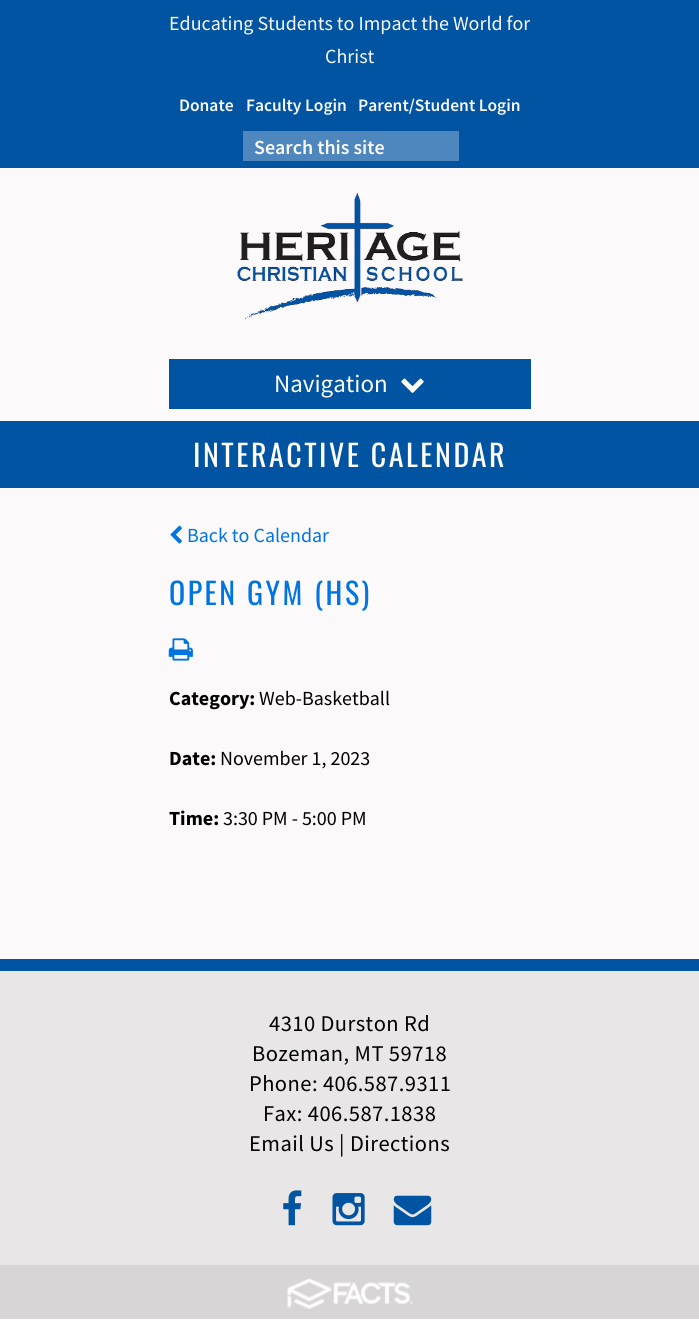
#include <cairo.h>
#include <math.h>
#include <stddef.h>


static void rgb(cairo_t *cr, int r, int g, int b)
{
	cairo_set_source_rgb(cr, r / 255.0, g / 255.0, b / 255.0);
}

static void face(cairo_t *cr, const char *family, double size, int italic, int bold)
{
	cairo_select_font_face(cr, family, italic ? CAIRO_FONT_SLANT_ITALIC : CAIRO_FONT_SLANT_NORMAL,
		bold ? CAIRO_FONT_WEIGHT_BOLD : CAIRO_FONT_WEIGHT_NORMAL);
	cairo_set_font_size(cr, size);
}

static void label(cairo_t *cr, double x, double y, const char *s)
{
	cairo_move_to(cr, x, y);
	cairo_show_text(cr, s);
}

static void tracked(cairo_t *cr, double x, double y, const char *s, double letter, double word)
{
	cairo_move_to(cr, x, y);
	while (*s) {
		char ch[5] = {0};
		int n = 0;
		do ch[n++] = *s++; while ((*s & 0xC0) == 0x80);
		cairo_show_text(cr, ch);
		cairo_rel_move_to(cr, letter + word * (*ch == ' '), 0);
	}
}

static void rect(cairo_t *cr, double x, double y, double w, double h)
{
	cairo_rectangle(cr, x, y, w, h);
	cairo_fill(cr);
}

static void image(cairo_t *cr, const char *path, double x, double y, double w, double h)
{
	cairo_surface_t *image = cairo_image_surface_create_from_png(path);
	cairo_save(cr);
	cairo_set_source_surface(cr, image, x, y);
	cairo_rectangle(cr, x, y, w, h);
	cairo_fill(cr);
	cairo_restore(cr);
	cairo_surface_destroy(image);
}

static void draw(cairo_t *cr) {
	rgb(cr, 255, 255, 255);
	cairo_paint(cr);
	rgb(cr, 251, 249, 249);
	rect(cr, 0, 168, 699, 791);
	rgb(cr, 1, 84, 162);
	rect(cr, 0, 0, 699, 168);
	face(cr, "Source Sans Pro", 20, 0, 0);
	rgb(cr, 251, 249, 249);
	label(cr, 169, 30, "Educating Students to Impact the World for");
	label(cr, 325, 63, "Christ");
	face(cr, "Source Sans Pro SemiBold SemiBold", 17.5, 0, 0);
	label(cr, 179, 111, "Donate");
	label(cr, 246, 111, "Faculty Login");
	label(cr, 358, 111, "Parent/Student Login");
	rgb(cr, 77, 135, 190);
	rect(cr, 243, 131, 216, 30);
	face(cr, "Source Sans Pro SemiBold SemiBold", 20, 0, 0);
	rgb(cr, 251, 249, 249);
	label(cr, 254, 154, "Search this site");
	image(cr, "image0.png", 237, 192, 226, 127);
	rgb(cr, 1, 84, 162);
	rect(cr, 169, 359, 362, 50);
	face(cr, "Source Sans Pro", 25, 0, 0);
	rgb(cr, 255, 255, 255);
	label(cr, 274, 392, "Navigation");
	image(cr, "image1.png", 401, 378, 23, 15);
	rgb(cr, 1, 84, 162);
	rect(cr, 0, 421, 699, 67);
	face(cr, "Oswald", 30, 0, 0);
	rgb(cr, 255, 255, 255);
	tracked(cr, 193, 467, "INTERACTIVE CALENDAR", 2.5, 0);
	image(cr, "image2.png", 170, 525, 12, 19);
	face(cr, "Source Sans Pro", 20, 0, 0);
	rgb(cr, 0, 116, 225);
	label(cr, 187, 542, "Back to Calendar");
	face(cr, "Oswald", 30, 0, 0);
	tracked(cr, 169, 605, "OPEN GYM (HS)", 2.5, 0);
	image(cr, "image3.png", 168, 638, 25, 23);
	face(cr, "Source Sans Pro", 20, 0, 1);
	rgb(cr, 0, 0, 0);
	label(cr, 169, 705, "Category:");
	face(cr, "Source Sans Pro", 20, 0, 0);
	label(cr, 259, 705, "Web-Basketball");
	face(cr, "Source Sans Pro", 20, 0, 1);
	label(cr, 169, 765, "Date:");
	face(cr, "Source Sans Pro", 20, 0, 0);
	label(cr, 220, 765, "November 1, 2023");
	face(cr, "Source Sans Pro", 20, 0, 1);
	label(cr, 169, 825, "Time:");
	face(cr, "Source Sans Pro", 20, 0, 0);
	label(cr, 223, 825, "3:30 PM - 5:00 PM");
	rgb(cr, 232, 230, 230);
	rect(cr, 0, 971, 699, 294);
	rgb(cr, 1, 84, 162);
	rect(cr, 0, 959, 699, 12);
	face(cr, "Source Sans Pro", 22.5, 0, 0);
	rgb(cr, 0, 0, 0);
	tracked(cr, 269, 1031, "4310 Durston Rd", 0.45, 0);
	tracked(cr, 252, 1061, "Bozeman, MT 59718", 0.45, 0);
	tracked(cr, 249, 1091, "Phone: 406.587.9311", 0.45, 0);
	tracked(cr, 263, 1121, "Fax: 406.587.1838", 0.45, 0);
	tracked(cr, 249, 1151, "Email Us | Directions", 0.45, 0);
	image(cr, "image4.png", 283, 1190, 19, 36);
	image(cr, "image5.png", 332, 1193, 33, 33);
	image(cr, "image6.png", 393, 1195, 39, 31);
	rgb(cr, 215, 213, 213);
	rect(cr, 0, 1265, 699, 54);
	image(cr, "image7.png", 287, 1278, 126, 31);
}

int main(void) {
	cairo_surface_t *surface = cairo_image_surface_create(CAIRO_FORMAT_RGB24, 699, 1325);
	cairo_t *cr = cairo_create(surface);
	cairo_font_options_t *options = cairo_font_options_create();
	cairo_font_options_set_hint_metrics(options, CAIRO_HINT_METRICS_OFF);
	cairo_font_options_set_hint_style(options, CAIRO_HINT_STYLE_NONE);
	cairo_set_font_options(cr, options);
	cairo_set_miter_limit(cr, 4);
	draw(cr);
	cairo_surface_write_to_png(surface, "render.png");
	cairo_font_options_destroy(options);
	cairo_destroy(cr);
	cairo_surface_destroy(surface);
	return 0;
}
